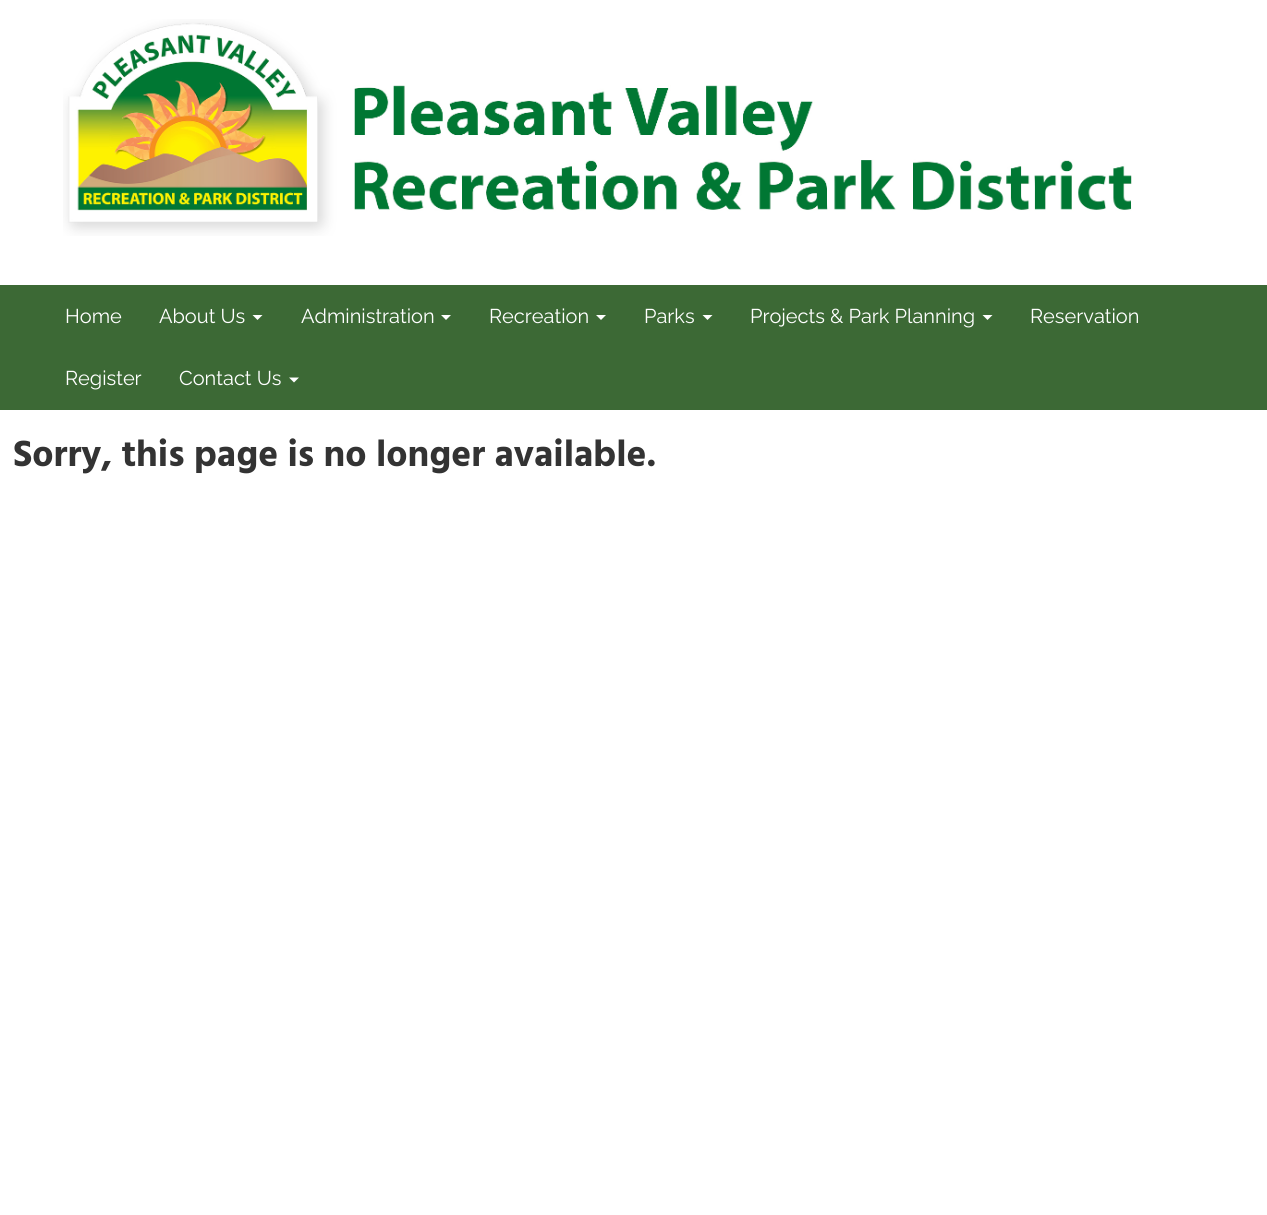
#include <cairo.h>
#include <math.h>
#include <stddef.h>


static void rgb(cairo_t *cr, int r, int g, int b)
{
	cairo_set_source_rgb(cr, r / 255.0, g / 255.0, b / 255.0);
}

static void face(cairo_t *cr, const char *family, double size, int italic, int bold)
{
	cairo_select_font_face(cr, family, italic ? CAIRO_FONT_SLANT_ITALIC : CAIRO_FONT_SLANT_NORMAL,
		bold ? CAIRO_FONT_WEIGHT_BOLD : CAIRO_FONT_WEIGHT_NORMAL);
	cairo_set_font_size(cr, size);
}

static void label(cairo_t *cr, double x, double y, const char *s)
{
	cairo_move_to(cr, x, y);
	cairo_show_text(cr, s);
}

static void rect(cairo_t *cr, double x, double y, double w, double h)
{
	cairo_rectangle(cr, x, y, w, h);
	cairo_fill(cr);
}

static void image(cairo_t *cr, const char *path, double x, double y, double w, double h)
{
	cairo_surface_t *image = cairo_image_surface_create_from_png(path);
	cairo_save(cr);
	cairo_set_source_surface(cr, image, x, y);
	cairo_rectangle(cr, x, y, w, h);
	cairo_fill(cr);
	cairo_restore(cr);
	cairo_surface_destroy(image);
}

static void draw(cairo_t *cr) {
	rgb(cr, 255, 255, 255);
	cairo_paint(cr);
	image(cr, "image0.png", 63, 19, 1069, 217);
	rgb(cr, 60, 105, 53);
	rect(cr, 0, 285, 1267, 125);
	face(cr, "Raleway", 20, 0, 0);
	rgb(cr, 255, 255, 255);
	label(cr, 65, 323, "Home");
	label(cr, 159, 323, "About Us");
	cairo_new_path(cr);
	cairo_move_to(cr, 252.5, 315);
	cairo_line_to(cr, 262.5, 315);
	cairo_line_to(cr, 257.5, 320);
	cairo_close_path(cr);
	cairo_fill(cr);
	label(cr, 301, 323, "Administration");
	cairo_new_path(cr);
	cairo_move_to(cr, 441, 315);
	cairo_line_to(cr, 451, 315);
	cairo_line_to(cr, 446, 320);
	cairo_close_path(cr);
	cairo_fill(cr);
	label(cr, 489, 323, "Recreation");
	cairo_new_path(cr);
	cairo_move_to(cr, 596, 315);
	cairo_line_to(cr, 606, 315);
	cairo_line_to(cr, 601, 320);
	cairo_close_path(cr);
	cairo_fill(cr);
	label(cr, 644, 323, "Parks");
	cairo_new_path(cr);
	cairo_move_to(cr, 702.5, 315);
	cairo_line_to(cr, 712.5, 315);
	cairo_line_to(cr, 707.5, 320);
	cairo_close_path(cr);
	cairo_fill(cr);
	label(cr, 750, 323, "Projects & Park Planning");
	cairo_new_path(cr);
	cairo_move_to(cr, 982.5, 315);
	cairo_line_to(cr, 992.5, 315);
	cairo_line_to(cr, 987.5, 320);
	cairo_close_path(cr);
	cairo_fill(cr);
	label(cr, 1030, 323, "Reservation");
	label(cr, 65, 385, "Register");
	label(cr, 179, 385, "Contact Us");
	cairo_new_path(cr);
	cairo_move_to(cr, 289, 377.5);
	cairo_line_to(cr, 299, 377.5);
	cairo_line_to(cr, 294, 382.5);
	cairo_close_path(cr);
	cairo_fill(cr);
	face(cr, "Hind Madurai", 37.5, 0, 1);
	rgb(cr, 51, 51, 51);
	label(cr, 13, 466, "Sorry, this page is no longer available.");
}

int main(void) {
	cairo_surface_t *surface = cairo_image_surface_create(CAIRO_FORMAT_RGB24, 1267, 1215);
	cairo_t *cr = cairo_create(surface);
	cairo_font_options_t *options = cairo_font_options_create();
	cairo_font_options_set_hint_metrics(options, CAIRO_HINT_METRICS_OFF);
	cairo_font_options_set_hint_style(options, CAIRO_HINT_STYLE_NONE);
	cairo_set_font_options(cr, options);
	cairo_set_miter_limit(cr, 4);
	draw(cr);
	cairo_surface_write_to_png(surface, "render.png");
	cairo_font_options_destroy(options);
	cairo_destroy(cr);
	cairo_surface_destroy(surface);
	return 0;
}
